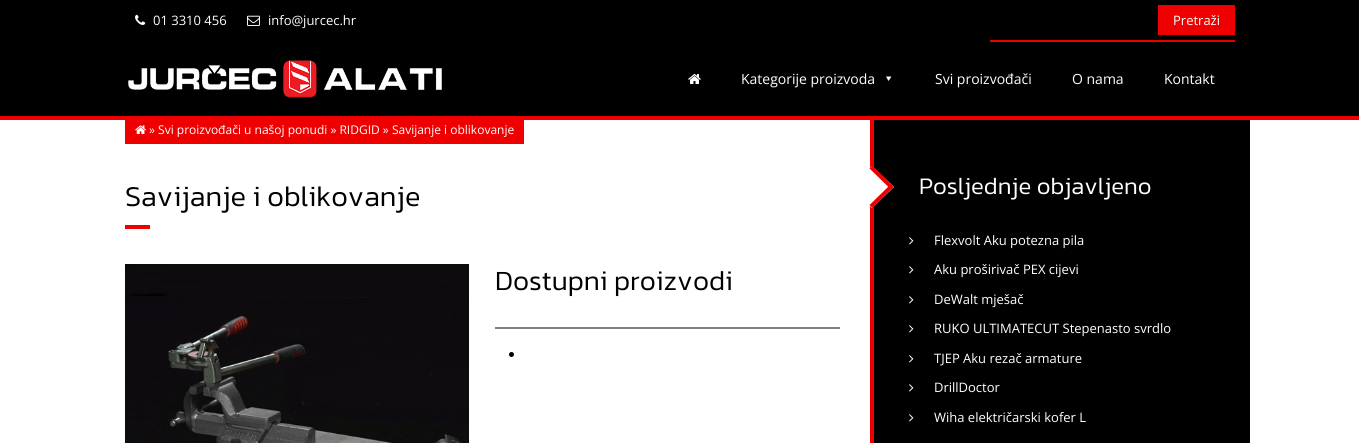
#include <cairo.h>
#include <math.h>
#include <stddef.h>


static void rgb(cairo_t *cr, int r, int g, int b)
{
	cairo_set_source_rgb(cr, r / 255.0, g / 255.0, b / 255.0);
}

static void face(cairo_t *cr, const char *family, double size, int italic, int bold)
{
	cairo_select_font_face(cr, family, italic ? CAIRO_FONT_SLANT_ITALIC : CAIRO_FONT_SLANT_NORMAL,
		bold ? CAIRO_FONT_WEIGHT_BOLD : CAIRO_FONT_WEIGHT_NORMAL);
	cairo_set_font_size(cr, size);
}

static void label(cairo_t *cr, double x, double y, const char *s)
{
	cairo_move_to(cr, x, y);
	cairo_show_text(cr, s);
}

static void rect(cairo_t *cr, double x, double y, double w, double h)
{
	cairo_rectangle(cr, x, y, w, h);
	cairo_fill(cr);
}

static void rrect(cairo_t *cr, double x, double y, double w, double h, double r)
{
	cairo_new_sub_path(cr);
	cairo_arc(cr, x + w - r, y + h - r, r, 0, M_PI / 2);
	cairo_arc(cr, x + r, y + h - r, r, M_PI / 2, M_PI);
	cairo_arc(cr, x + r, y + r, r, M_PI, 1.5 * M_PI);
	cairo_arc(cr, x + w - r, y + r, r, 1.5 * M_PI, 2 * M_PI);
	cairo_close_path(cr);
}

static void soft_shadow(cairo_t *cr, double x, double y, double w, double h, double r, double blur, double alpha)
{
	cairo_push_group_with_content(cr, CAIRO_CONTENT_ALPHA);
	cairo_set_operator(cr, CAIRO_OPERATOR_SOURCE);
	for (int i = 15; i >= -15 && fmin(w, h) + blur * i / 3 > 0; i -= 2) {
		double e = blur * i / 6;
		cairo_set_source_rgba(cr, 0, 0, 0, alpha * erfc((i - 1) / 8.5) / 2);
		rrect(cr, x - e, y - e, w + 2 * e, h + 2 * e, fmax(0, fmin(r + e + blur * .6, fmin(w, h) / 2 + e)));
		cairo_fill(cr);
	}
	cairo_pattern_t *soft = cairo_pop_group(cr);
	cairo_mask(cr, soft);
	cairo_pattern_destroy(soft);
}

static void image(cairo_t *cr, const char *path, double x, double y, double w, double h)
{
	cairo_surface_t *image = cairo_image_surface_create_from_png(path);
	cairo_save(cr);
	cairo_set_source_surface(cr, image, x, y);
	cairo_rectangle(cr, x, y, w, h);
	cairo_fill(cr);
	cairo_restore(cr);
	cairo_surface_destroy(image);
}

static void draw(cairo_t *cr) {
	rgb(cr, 255, 255, 255);
	cairo_paint(cr);
	rgb(cr, 0, 0, 0);
	rect(cr, 0, 0, 1359, 42);
	image(cr, "image0.png", 135, 14, 11, 11);
	face(cr, "Open Sans", 13, 0, 0);
	rgb(cr, 255, 255, 255);
	label(cr, 153, 25, "01 3310 456");
	image(cr, "image1.png", 247, 15, 13, 11);
	label(cr, 268, 25, "info@jurcec.hr");
	rgb(cr, 238, 0, 0);
	rect(cr, 990, 40, 245, 2);
	rgb(cr, 0, 0, 0);
	soft_shadow(cr, 1168, 15, 77, 30, 0, 15, 0.1);
	rgb(cr, 238, 0, 0);
	rect(cr, 1158, 5, 77, 30);
	rgb(cr, 255, 255, 255);
	label(cr, 1173, 25, "Pretraži");
	rgb(cr, 238, 0, 0);
	rect(cr, 870, 112, 4, 331);
	rgb(cr, 0, 0, 0);
	rect(cr, 0, 42, 1359, 74);
	image(cr, "image2.png", 128, 60, 314, 38);
	image(cr, "image3.png", 688, 74, 13, 10);
	face(cr, "Open Sans", 14, 0, 0);
	rgb(cr, 255, 255, 255);
	label(cr, 741, 84, "Kategorije proizvoda");
	cairo_new_path(cr);
	cairo_move_to(cr, 891.5, 76.5);
	cairo_line_to(cr, 888.5, 81);
	cairo_line_to(cr, 886, 76.5);
	cairo_close_path(cr);
	cairo_fill(cr);
	label(cr, 935, 84, "Svi proizvođači");
	label(cr, 1072, 84, "O nama");
	label(cr, 1164, 84, "Kontakt");
	rgb(cr, 238, 0, 0);
	rect(cr, 0, 116, 1359, 4);
	rect(cr, 125, 120, 399, 24);
	image(cr, "image4.png", 135, 125, 11, 9);
	face(cr, "Open Sans", 12, 0, 0);
	rgb(cr, 255, 255, 255);
	label(cr, 149, 134, "» Svi proizvođači u našoj ponudi » RIDGID » Savijanje i oblikovanje");
	face(cr, "Kanit Light", 29, 0, 0);
	rgb(cr, 0, 0, 0);
	label(cr, 125, 206, "Savijanje i oblikovanje");
	rgb(cr, 238, 0, 0);
	rect(cr, 125, 225, 25, 4);
	image(cr, "image5.png", 125, 264, 344, 179);
	face(cr, "Kanit Light", 28, 0, 0);
	rgb(cr, 0, 0, 0);
	label(cr, 495, 290, "Dostupni proizvodi");
	rgb(cr, 128, 128, 128);
	rect(cr, 495, 327, 345, 2);
	rgb(cr, 0, 0, 0);
	cairo_new_path(cr);
	cairo_arc(cr, 511.5, 354.5, 2.5, 0, 2 * M_PI);
	cairo_fill(cr);
	rect(cr, 874, 120, 376, 323);
	rgb(cr, 255, 255, 255);
	cairo_new_path(cr);
	cairo_move_to(cr, 872, 166);
	cairo_line_to(cr, 894, 187);
	cairo_line_to(cr, 872, 208);
	cairo_line_to(cr, 851, 187);
	cairo_close_path(cr);
	cairo_fill(cr);
	rgb(cr, 238, 0, 0);
	cairo_new_path(cr);
	cairo_move_to(cr, 872.5, 165.5);
	cairo_line_to(cr, 893.5, 187);
	cairo_line_to(cr, 891, 189.5);
	cairo_line_to(cr, 869.5, 168.5);
	cairo_close_path(cr);
	cairo_fill(cr);
	cairo_new_path(cr);
	cairo_move_to(cr, 891, 184);
	cairo_line_to(cr, 893.5, 187);
	cairo_line_to(cr, 872.5, 208);
	cairo_line_to(cr, 869.5, 205);
	cairo_close_path(cr);
	cairo_fill(cr);
	face(cr, "Kanit Light", 24, 0, 0);
	rgb(cr, 255, 255, 255);
	label(cr, 919, 194, "Posljednje objavljeno");
	image(cr, "image6.png", 909, 237, 5, 8);
	face(cr, "Open Sans", 13, 0, 0);
	label(cr, 934, 245, "Flexvolt Aku potezna pila");
	image(cr, "image6.png", 909, 266, 5, 8);
	label(cr, 934, 274, "Aku proširivač PEX cijevi");
	image(cr, "image6.png", 909, 296, 5, 8);
	label(cr, 934, 304, "DeWalt mješač");
	image(cr, "image6.png", 909, 325, 5, 8);
	label(cr, 934, 333, "RUKO ULTIMATECUT Stepenasto svrdlo");
	image(cr, "image6.png", 909, 355, 5, 8);
	label(cr, 934, 363, "TJEP Aku rezač armature");
	image(cr, "image6.png", 909, 384, 5, 8);
	label(cr, 934, 392, "DrillDoctor");
	image(cr, "image6.png", 909, 414, 5, 8);
	label(cr, 934, 422, "Wiha električarski kofer L");
}

int main(void) {
	cairo_surface_t *surface = cairo_image_surface_create(CAIRO_FORMAT_RGB24, 1359, 443);
	cairo_t *cr = cairo_create(surface);
	cairo_font_options_t *options = cairo_font_options_create();
	cairo_font_options_set_hint_metrics(options, CAIRO_HINT_METRICS_OFF);
	cairo_font_options_set_hint_style(options, CAIRO_HINT_STYLE_NONE);
	cairo_set_font_options(cr, options);
	cairo_set_miter_limit(cr, 4);
	draw(cr);
	cairo_surface_write_to_png(surface, "render.png");
	cairo_font_options_destroy(options);
	cairo_destroy(cr);
	cairo_surface_destroy(surface);
	return 0;
}
